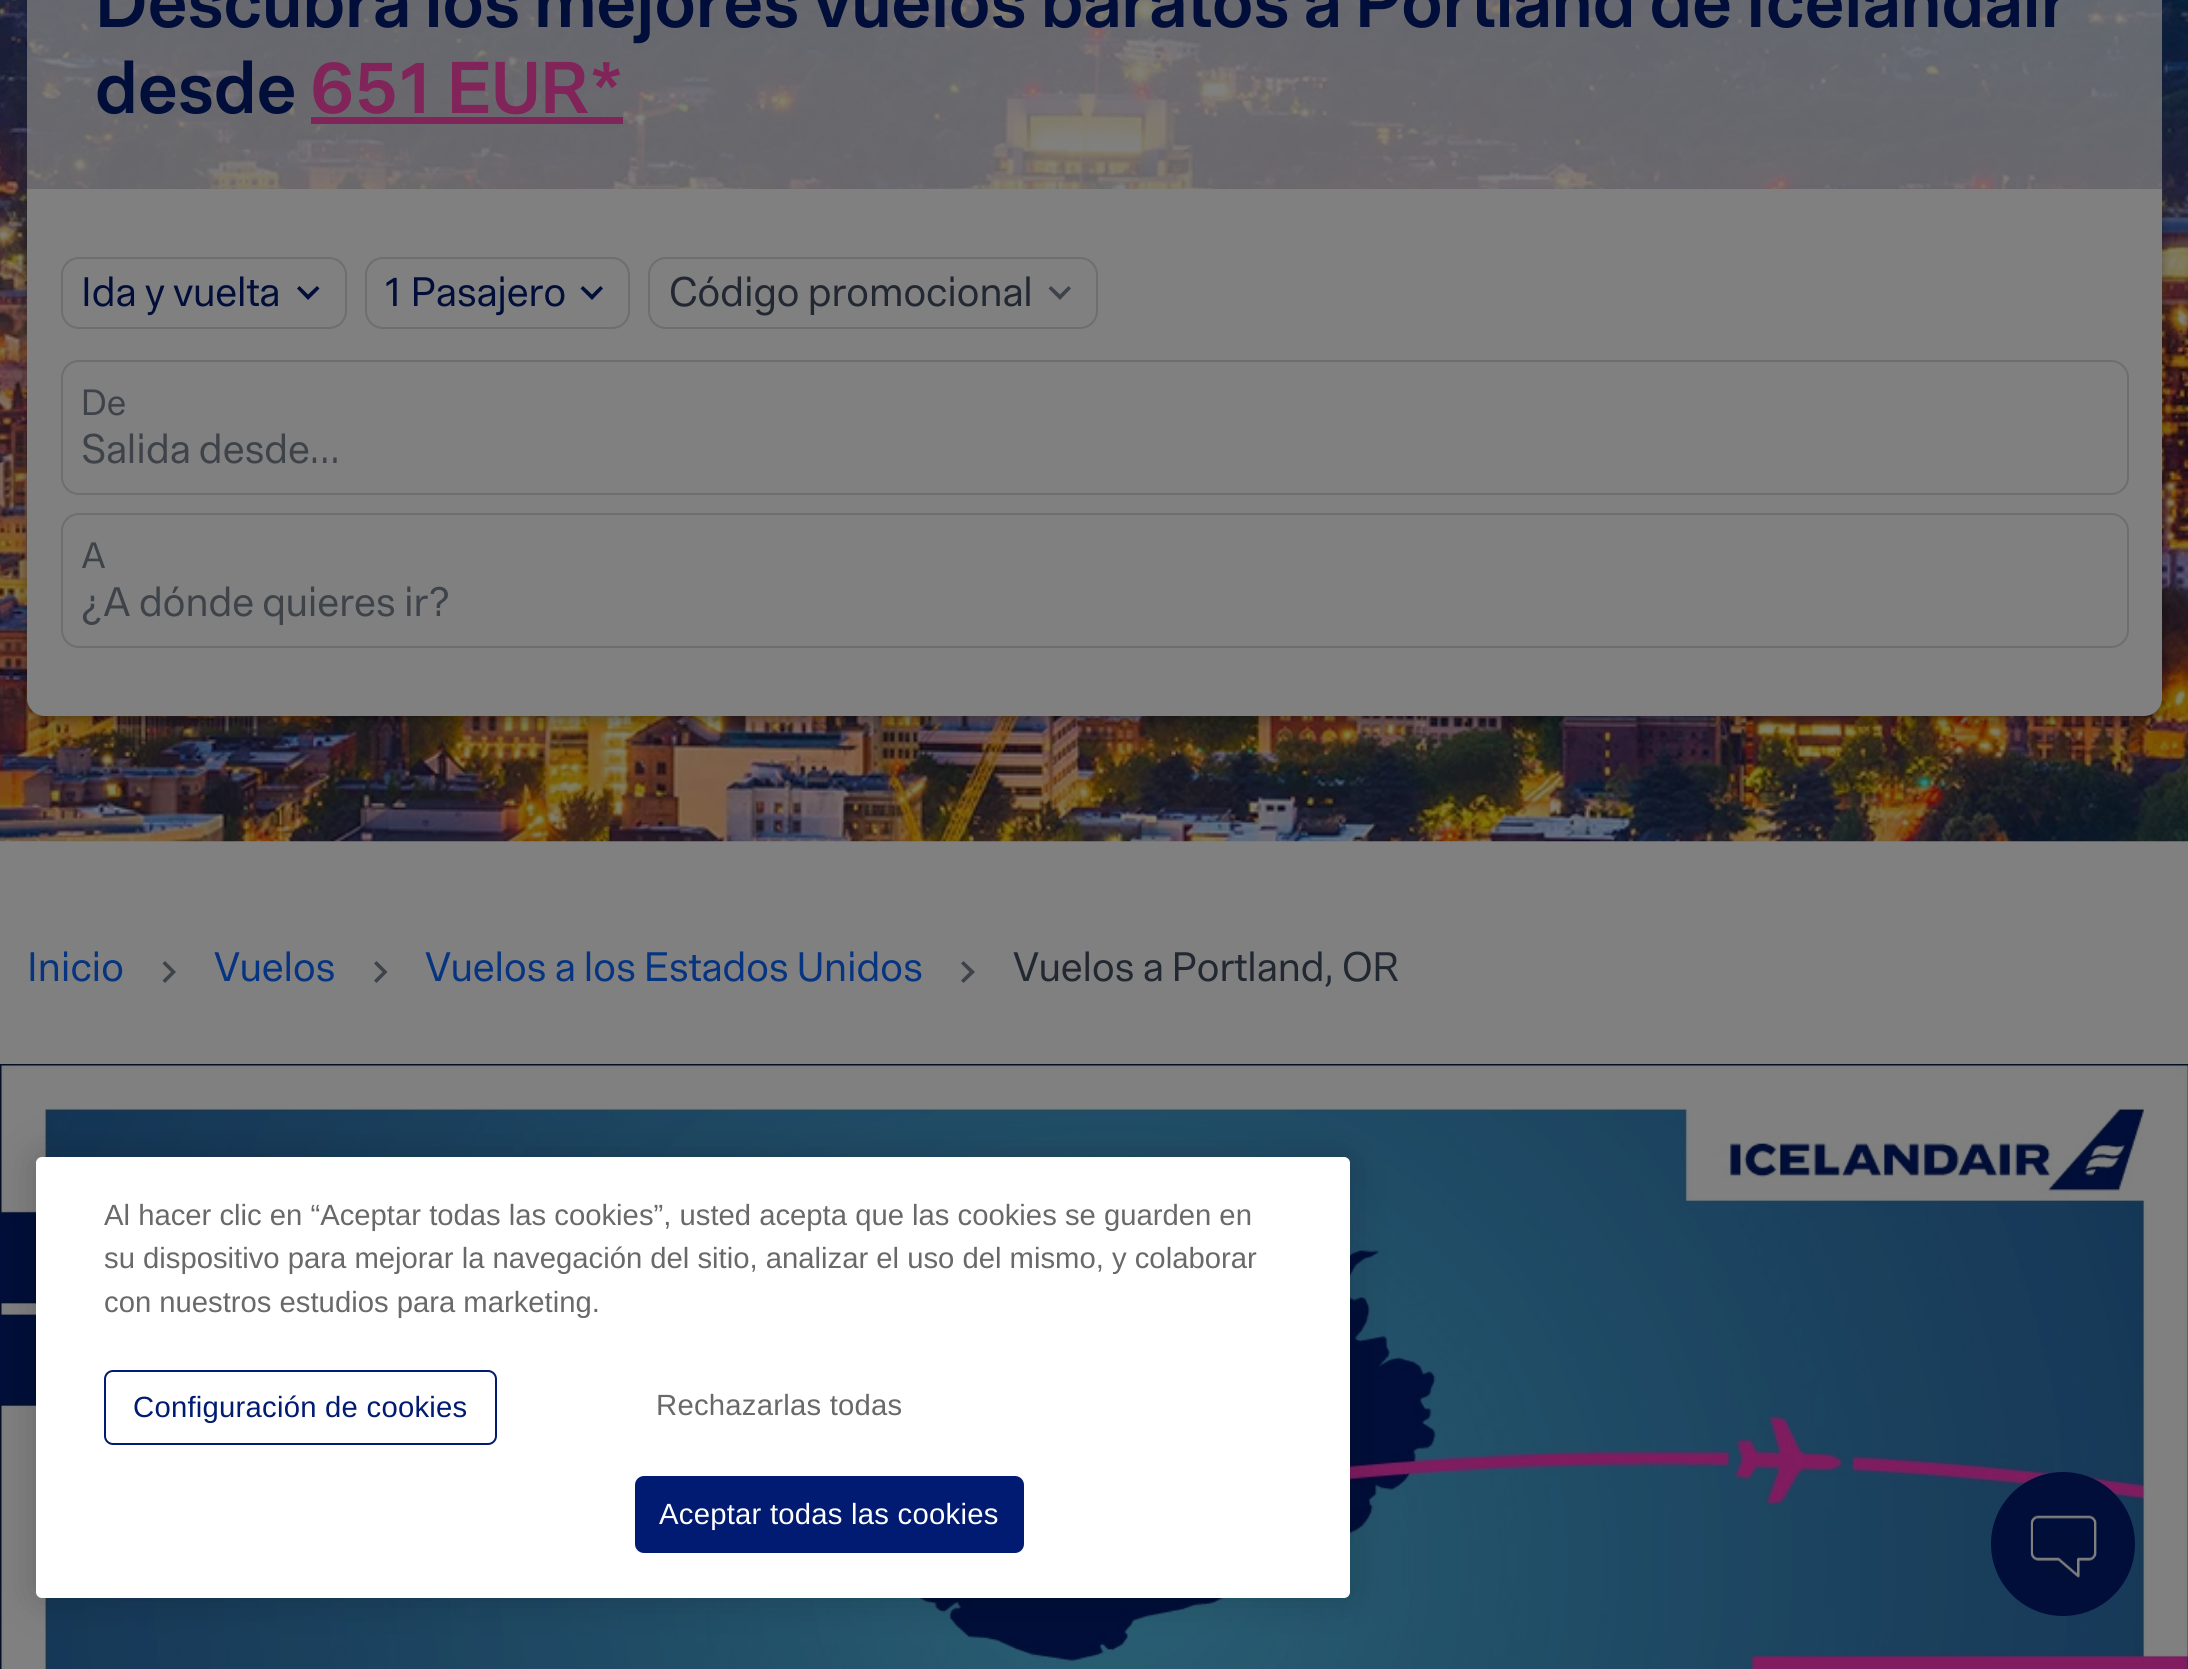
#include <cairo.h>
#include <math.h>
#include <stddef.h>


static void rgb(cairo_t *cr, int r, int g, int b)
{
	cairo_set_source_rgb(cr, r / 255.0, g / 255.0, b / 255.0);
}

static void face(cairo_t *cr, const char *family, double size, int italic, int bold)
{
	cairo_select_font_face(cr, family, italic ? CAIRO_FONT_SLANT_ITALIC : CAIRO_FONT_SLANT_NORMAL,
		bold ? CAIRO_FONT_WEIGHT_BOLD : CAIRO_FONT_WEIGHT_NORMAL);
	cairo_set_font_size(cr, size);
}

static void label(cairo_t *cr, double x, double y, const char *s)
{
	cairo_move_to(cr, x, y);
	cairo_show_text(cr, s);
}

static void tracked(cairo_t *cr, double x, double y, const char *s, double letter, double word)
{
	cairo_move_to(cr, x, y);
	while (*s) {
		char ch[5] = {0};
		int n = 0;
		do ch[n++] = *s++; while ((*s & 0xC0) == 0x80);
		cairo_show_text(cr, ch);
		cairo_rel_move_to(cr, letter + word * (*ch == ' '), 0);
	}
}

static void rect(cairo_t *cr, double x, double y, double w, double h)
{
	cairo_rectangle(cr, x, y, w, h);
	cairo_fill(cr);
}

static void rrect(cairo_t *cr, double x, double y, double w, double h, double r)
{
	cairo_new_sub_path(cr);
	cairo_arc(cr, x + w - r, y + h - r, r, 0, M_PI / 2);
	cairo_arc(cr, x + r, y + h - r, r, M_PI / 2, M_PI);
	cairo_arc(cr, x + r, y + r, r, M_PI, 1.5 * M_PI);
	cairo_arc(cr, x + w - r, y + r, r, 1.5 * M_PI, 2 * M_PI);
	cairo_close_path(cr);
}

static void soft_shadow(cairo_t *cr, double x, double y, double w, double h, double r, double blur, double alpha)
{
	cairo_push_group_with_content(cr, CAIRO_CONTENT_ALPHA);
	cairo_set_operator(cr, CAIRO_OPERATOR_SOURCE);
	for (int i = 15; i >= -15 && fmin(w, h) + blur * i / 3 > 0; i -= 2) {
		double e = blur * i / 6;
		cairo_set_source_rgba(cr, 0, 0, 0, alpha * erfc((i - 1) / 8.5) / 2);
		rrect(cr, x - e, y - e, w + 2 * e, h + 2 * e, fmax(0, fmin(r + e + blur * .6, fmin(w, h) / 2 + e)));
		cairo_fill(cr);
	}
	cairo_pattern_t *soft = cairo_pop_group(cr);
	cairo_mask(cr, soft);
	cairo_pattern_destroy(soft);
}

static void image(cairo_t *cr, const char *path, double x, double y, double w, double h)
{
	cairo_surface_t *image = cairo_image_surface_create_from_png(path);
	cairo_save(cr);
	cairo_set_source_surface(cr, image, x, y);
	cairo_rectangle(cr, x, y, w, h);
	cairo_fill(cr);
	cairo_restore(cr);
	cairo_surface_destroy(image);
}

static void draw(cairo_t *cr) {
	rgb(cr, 128, 128, 128);
	cairo_paint(cr);
	image(cr, "image0.png", 0, 0, 2188, 842);
	rgb(cr, 0, 0, 0);
	soft_shadow(cr, 27, 194, 2135, 526, 18, 5.5, 0.3);
	cairo_set_source_rgba(cr, 0.502, 0.502, 0.502, 0.75);
	rect(cr, 27, 0, 2135, 189);
	face(cr, "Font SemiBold", 72, 0, 0);
	rgb(cr, 0, 14, 57);
	label(cr, 95, 27, "Descubra los mejores vuelos baratos a Portland de Icelandair");
	label(cr, 95, 113, "desde");
	rgb(cr, 128, 36, 90);
	label(cr, 310, 113, "651 EUR*");
	rect(cr, 311, 117, 312, 7);
	rgb(cr, 128, 128, 128);
	cairo_new_path(cr);
	cairo_move_to(cr, 27, 189);
	cairo_line_to(cr, 2162, 189);
	cairo_line_to(cr, 2162, 698);
	cairo_curve_to(cr, 2162, 708, 2154, 716, 2144, 716);
	cairo_line_to(cr, 45, 716);
	cairo_curve_to(cr, 35, 716, 27, 708, 27, 698);
	cairo_close_path(cr);
	cairo_fill(cr);
	rrect(cr, 62, 258, 284, 70, 17);
	rgb(cr, 109, 110, 112);
	cairo_stroke(cr);
	face(cr, "Font", 40.5, 0, 0);
	rgb(cr, 0, 14, 57);
	label(cr, 81, 306, "Ida y vuelta");
	cairo_new_path(cr);
	cairo_move_to(cr, 317, 286);
	cairo_line_to(cr, 319.5, 288.5);
	cairo_line_to(cr, 308, 300);
	cairo_line_to(cr, 297, 288.5);
	cairo_line_to(cr, 299.5, 286);
	cairo_line_to(cr, 308, 294.5);
	cairo_close_path(cr);
	cairo_fill(cr);
	rrect(cr, 366, 258, 263, 70, 17);
	rgb(cr, 109, 110, 112);
	cairo_stroke(cr);
	rgb(cr, 0, 14, 57);
	label(cr, 384, 306, "1 Pasajero");
	cairo_new_path(cr);
	cairo_move_to(cr, 600.5, 286);
	cairo_line_to(cr, 603, 288.5);
	cairo_line_to(cr, 592, 300);
	cairo_line_to(cr, 580.5, 288.5);
	cairo_line_to(cr, 583, 286);
	cairo_line_to(cr, 592, 294.5);
	cairo_close_path(cr);
	cairo_fill(cr);
	rrect(cr, 649, 258, 448, 70, 17);
	rgb(cr, 109, 110, 112);
	cairo_stroke(cr);
	rgb(cr, 34, 40, 50);
	label(cr, 669, 306, "Código promocional");
	rgb(cr, 62, 67, 74);
	cairo_new_path(cr);
	cairo_move_to(cr, 1068.5, 286);
	cairo_line_to(cr, 1071, 288.5);
	cairo_line_to(cr, 1060, 300);
	cairo_line_to(cr, 1048.5, 288.5);
	cairo_line_to(cr, 1051, 286);
	cairo_line_to(cr, 1060, 294.5);
	cairo_close_path(cr);
	cairo_fill(cr);
	rrect(cr, 62, 361, 2066, 133, 17);
	rgb(cr, 109, 110, 112);
	cairo_stroke(cr);
	face(cr, "Font", 36, 0, 0);
	rgb(cr, 62, 67, 74);
	label(cr, 81, 415, "De");
	face(cr, "Font", 40.5, 0, 0);
	label(cr, 81, 463, "Salida desde…");
	rrect(cr, 62, 514, 2066, 133, 17);
	rgb(cr, 109, 110, 112);
	cairo_stroke(cr);
	face(cr, "Font", 36, 0, 0);
	rgb(cr, 62, 67, 74);
	label(cr, 81, 568, "A");
	face(cr, "Font", 40.5, 0, 0);
	label(cr, 81, 616, "¿A dónde quieres ir?");
	rgb(cr, 6, 52, 128);
	label(cr, 27, 981, "Inicio");
	rgb(cr, 62, 67, 74);
	cairo_new_path(cr);
	cairo_move_to(cr, 162.5, 980.5);
	cairo_line_to(cr, 171, 972);
	cairo_line_to(cr, 162.5, 963.5);
	cairo_line_to(cr, 165, 961);
	cairo_line_to(cr, 176, 972);
	cairo_line_to(cr, 165, 983);
	cairo_close_path(cr);
	cairo_fill(cr);
	rgb(cr, 6, 52, 128);
	label(cr, 214, 981, "Vuelos");
	rgb(cr, 62, 67, 74);
	cairo_new_path(cr);
	cairo_move_to(cr, 374, 980.5);
	cairo_line_to(cr, 382.5, 972);
	cairo_line_to(cr, 374, 963.5);
	cairo_line_to(cr, 376.5, 961);
	cairo_line_to(cr, 387.5, 972);
	cairo_line_to(cr, 376.5, 983);
	cairo_close_path(cr);
	cairo_fill(cr);
	rgb(cr, 6, 52, 128);
	label(cr, 425, 981, "Vuelos a los Estados Unidos");
	rgb(cr, 62, 67, 74);
	cairo_new_path(cr);
	cairo_move_to(cr, 961, 980.5);
	cairo_line_to(cr, 969.5, 972);
	cairo_line_to(cr, 961, 963.5);
	cairo_line_to(cr, 963.5, 961);
	cairo_line_to(cr, 975, 972);
	cairo_line_to(cr, 963.5, 983);
	cairo_close_path(cr);
	cairo_fill(cr);
	rgb(cr, 34, 40, 50);
	label(cr, 1013, 981, "Vuelos a Portland, OR");
	image(cr, "image1.png", 0, 1064, 2188, 605);
	rgb(cr, 0, 0, 0);
	soft_shadow(cr, 36, 1157, 1314, 441, 6, 20, 0.2);
	rgb(cr, 255, 255, 255);
	rrect(cr, 36, 1157, 1314, 441, 6);
	cairo_fill(cr);
	face(cr, "Liberation Sans", 29.25, 0, 0);
	rgb(cr, 105, 105, 105);
	label(cr, 104, 1225, "Al hacer clic en “Aceptar todas las cookies”, usted acepta que las cookies se guarden en");
	label(cr, 104, 1268, "su dispositivo para mejorar la navegación del sitio, analizar el uso del mismo, y colaborar");
	label(cr, 104, 1312, "con nuestros estudios para marketing.");
	rrect(cr, 105, 1371, 391, 73, 8);
	rgb(cr, 0, 27, 113);
	cairo_stroke(cr);
	tracked(cr, 133, 1417, "Configuración de cookies", 0.25, 0);
	rgb(cr, 105, 105, 105);
	tracked(cr, 656, 1415, "Rechazarlas todas", 0.25, 0);
	rgb(cr, 0, 27, 113);
	rrect(cr, 636, 1477, 387, 75, 8);
	cairo_fill_preserve(cr);
	cairo_stroke(cr);
	rgb(cr, 255, 255, 255);
	tracked(cr, 659, 1524, "Aceptar todas las cookies", 0.25, 0);
	rgb(cr, 0, 14, 57);
	cairo_new_path(cr);
	cairo_arc(cr, 2063, 1544, 72, 0, 2 * M_PI);
	cairo_fill(cr);
	image(cr, "image2.png", 2030, 1515, 67, 63);
}

int main(void) {
	cairo_surface_t *surface = cairo_image_surface_create(CAIRO_FORMAT_RGB24, 2188, 1669);
	cairo_t *cr = cairo_create(surface);
	cairo_font_options_t *options = cairo_font_options_create();
	cairo_font_options_set_hint_metrics(options, CAIRO_HINT_METRICS_OFF);
	cairo_font_options_set_hint_style(options, CAIRO_HINT_STYLE_NONE);
	cairo_set_font_options(cr, options);
	cairo_set_miter_limit(cr, 4);
	draw(cr);
	cairo_surface_write_to_png(surface, "render.png");
	cairo_font_options_destroy(options);
	cairo_destroy(cr);
	cairo_surface_destroy(surface);
	return 0;
}
